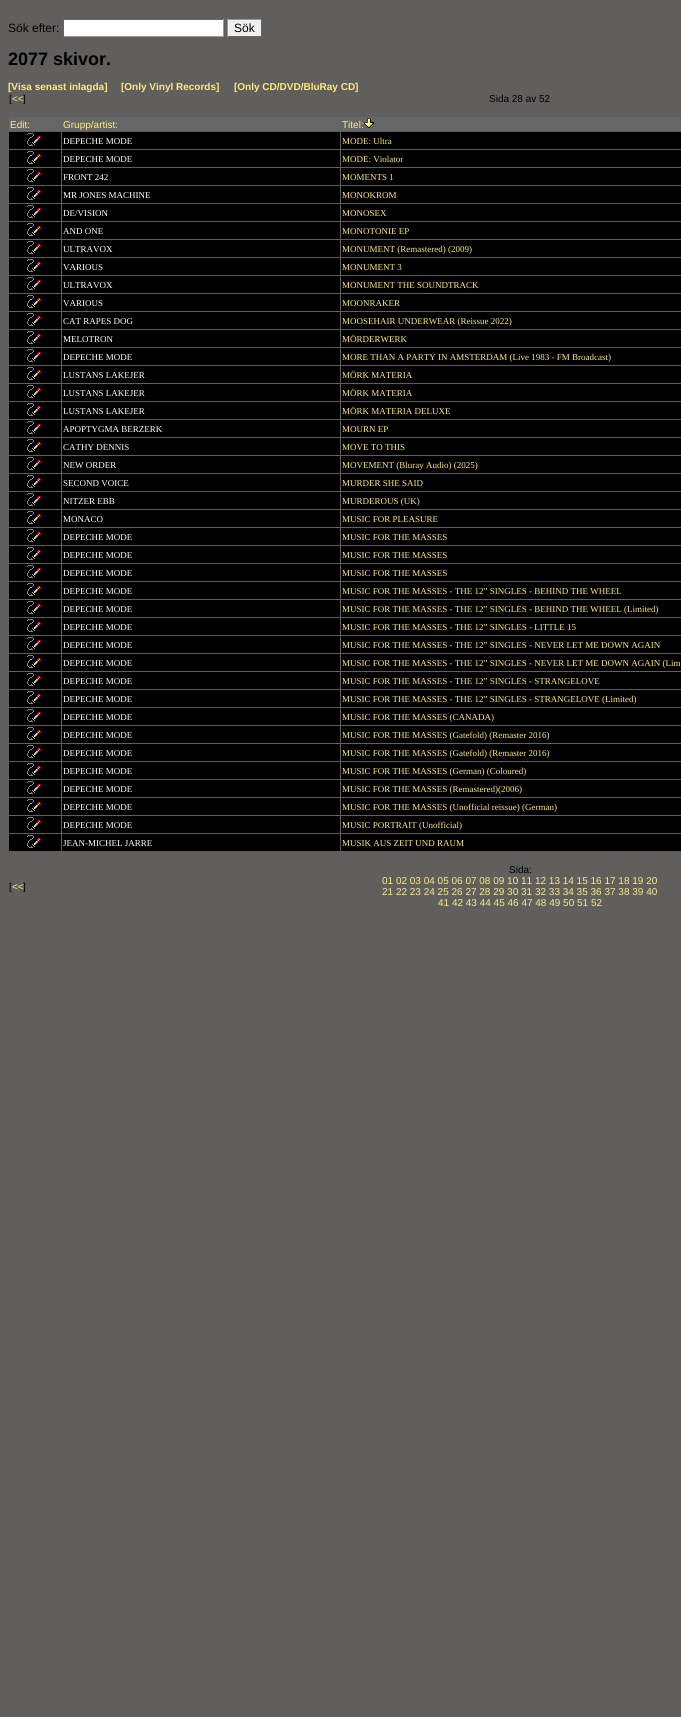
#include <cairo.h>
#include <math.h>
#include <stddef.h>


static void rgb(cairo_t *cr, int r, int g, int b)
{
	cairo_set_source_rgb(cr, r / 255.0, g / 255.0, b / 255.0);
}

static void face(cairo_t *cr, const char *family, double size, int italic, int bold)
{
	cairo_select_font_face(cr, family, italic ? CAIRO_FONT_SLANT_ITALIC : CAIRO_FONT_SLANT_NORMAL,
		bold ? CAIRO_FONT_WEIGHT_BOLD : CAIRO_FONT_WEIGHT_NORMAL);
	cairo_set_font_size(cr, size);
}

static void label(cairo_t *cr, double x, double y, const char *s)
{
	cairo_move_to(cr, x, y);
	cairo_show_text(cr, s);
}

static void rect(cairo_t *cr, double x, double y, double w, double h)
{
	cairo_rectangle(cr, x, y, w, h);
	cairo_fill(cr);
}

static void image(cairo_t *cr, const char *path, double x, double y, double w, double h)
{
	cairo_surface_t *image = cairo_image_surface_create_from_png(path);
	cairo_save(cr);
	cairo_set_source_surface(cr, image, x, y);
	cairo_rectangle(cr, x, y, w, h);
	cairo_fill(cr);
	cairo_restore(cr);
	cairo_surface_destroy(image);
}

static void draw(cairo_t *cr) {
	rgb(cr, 97, 94, 94);
	cairo_paint(cr);
	face(cr, "Liberation Sans", 12, 0, 0);
	rgb(cr, 0, 0, 0);
	label(cr, 8, 32, "Sök efter:");
	rgb(cr, 255, 255, 255);
	rect(cr, 64, 20, 159, 16);
	rgb(cr, 102, 102, 102);
	rect(cr, 63, 19, 161, 1);
	rgb(cr, 153, 153, 153);
	rect(cr, 223, 19, 1, 18);
	rect(cr, 63, 36, 161, 1);
	rgb(cr, 102, 102, 102);
	rect(cr, 63, 19, 1, 18);
	rgb(cr, 239, 239, 239);
	rect(cr, 228, 20, 33, 16);
	rgb(cr, 153, 153, 153);
	rect(cr, 227, 19, 35, 1);
	rgb(cr, 102, 102, 102);
	rect(cr, 261, 19, 1, 18);
	rect(cr, 227, 36, 35, 1);
	rgb(cr, 153, 153, 153);
	rect(cr, 227, 19, 1, 18);
	rgb(cr, 0, 0, 0);
	label(cr, 234, 32, "Sök");
	face(cr, "Liberation Sans", 18, 0, 1);
	label(cr, 8, 65, "2077 skivor.");
	face(cr, "Liberation Sans", 10, 0, 1);
	rgb(cr, 252, 234, 131);
	label(cr, 8, 90, "[Visa senast inlagda]");
	label(cr, 121, 90, "[Only Vinyl Records]");
	label(cr, 234, 90, "[Only CD/DVD/BluRay CD]");
	face(cr, "Liberation Sans", 10, 0, 0);
	rgb(cr, 0, 0, 0);
	label(cr, 9, 102, "[");
	rgb(cr, 252, 234, 131);
	label(cr, 12, 102, "<<");
	rgb(cr, 0, 0, 0);
	label(cr, 23, 102, "]");
	label(cr, 489, 102, "Sida 28 av 52");
	rgb(cr, 102, 102, 102);
	rect(cr, 9, 117, 672, 14);
	rgb(cr, 252, 234, 131);
	label(cr, 10, 128, "Edit:");
	label(cr, 63, 128, "Grupp/artist:");
	label(cr, 342, 128, "Titel:");
	image(cr, "image0.png", 364, 118, 10, 10);
	rgb(cr, 0, 0, 0);
	rect(cr, 9, 132, 52, 17);
	image(cr, "image1.png", 27, 133, 14, 13);
	rect(cr, 62, 132, 278, 17);
	face(cr, "Liberation Serif", 9, 0, 0);
	rgb(cr, 255, 255, 255);
	label(cr, 63, 144, "DEPECHE MODE");
	rgb(cr, 0, 0, 0);
	rect(cr, 341, 132, 340, 17);
	rgb(cr, 252, 234, 131);
	label(cr, 342, 144, "MODE: Ultra");
	rgb(cr, 0, 0, 0);
	rect(cr, 9, 150, 52, 17);
	image(cr, "image1.png", 27, 151, 14, 13);
	rect(cr, 62, 150, 278, 17);
	rgb(cr, 255, 255, 255);
	label(cr, 63, 162, "DEPECHE MODE");
	rgb(cr, 0, 0, 0);
	rect(cr, 341, 150, 340, 17);
	rgb(cr, 252, 234, 131);
	label(cr, 342, 162, "MODE: Violator");
	rgb(cr, 0, 0, 0);
	rect(cr, 9, 168, 52, 17);
	image(cr, "image1.png", 27, 169, 14, 13);
	rect(cr, 62, 168, 278, 17);
	rgb(cr, 255, 255, 255);
	label(cr, 63, 180, "FRONT 242");
	rgb(cr, 0, 0, 0);
	rect(cr, 341, 168, 340, 17);
	rgb(cr, 252, 234, 131);
	label(cr, 342, 180, "MOMENTS 1");
	rgb(cr, 0, 0, 0);
	rect(cr, 9, 186, 52, 17);
	image(cr, "image1.png", 27, 187, 14, 13);
	rect(cr, 62, 186, 278, 17);
	rgb(cr, 255, 255, 255);
	label(cr, 63, 198, "MR JONES MACHINE");
	rgb(cr, 0, 0, 0);
	rect(cr, 341, 186, 340, 17);
	rgb(cr, 252, 234, 131);
	label(cr, 342, 198, "MONOKROM");
	rgb(cr, 0, 0, 0);
	rect(cr, 9, 204, 52, 17);
	image(cr, "image1.png", 27, 205, 14, 13);
	rect(cr, 62, 204, 278, 17);
	rgb(cr, 255, 255, 255);
	label(cr, 63, 216, "DE/VISION");
	rgb(cr, 0, 0, 0);
	rect(cr, 341, 204, 340, 17);
	rgb(cr, 252, 234, 131);
	label(cr, 342, 216, "MONOSEX");
	rgb(cr, 0, 0, 0);
	rect(cr, 9, 222, 52, 17);
	image(cr, "image1.png", 27, 223, 14, 13);
	rect(cr, 62, 222, 278, 17);
	rgb(cr, 255, 255, 255);
	label(cr, 63, 234, "AND ONE");
	rgb(cr, 0, 0, 0);
	rect(cr, 341, 222, 340, 17);
	rgb(cr, 252, 234, 131);
	label(cr, 342, 234, "MONOTONIE EP");
	rgb(cr, 0, 0, 0);
	rect(cr, 9, 240, 52, 17);
	image(cr, "image1.png", 27, 241, 14, 13);
	rect(cr, 62, 240, 278, 17);
	rgb(cr, 255, 255, 255);
	label(cr, 63, 252, "ULTRAVOX");
	rgb(cr, 0, 0, 0);
	rect(cr, 341, 240, 340, 17);
	rgb(cr, 252, 234, 131);
	label(cr, 342, 252, "MONUMENT (Remastered) (2009)");
	rgb(cr, 0, 0, 0);
	rect(cr, 9, 258, 52, 17);
	image(cr, "image1.png", 27, 259, 14, 13);
	rect(cr, 62, 258, 278, 17);
	rgb(cr, 255, 255, 255);
	label(cr, 63, 270, "VARIOUS");
	rgb(cr, 0, 0, 0);
	rect(cr, 341, 258, 340, 17);
	rgb(cr, 252, 234, 131);
	label(cr, 342, 270, "MONUMENT 3");
	rgb(cr, 0, 0, 0);
	rect(cr, 9, 276, 52, 17);
	image(cr, "image1.png", 27, 277, 14, 13);
	rect(cr, 62, 276, 278, 17);
	rgb(cr, 255, 255, 255);
	label(cr, 63, 288, "ULTRAVOX");
	rgb(cr, 0, 0, 0);
	rect(cr, 341, 276, 340, 17);
	rgb(cr, 252, 234, 131);
	label(cr, 342, 288, "MONUMENT THE SOUNDTRACK");
	rgb(cr, 0, 0, 0);
	rect(cr, 9, 294, 52, 17);
	image(cr, "image1.png", 27, 295, 14, 13);
	rect(cr, 62, 294, 278, 17);
	rgb(cr, 255, 255, 255);
	label(cr, 63, 306, "VARIOUS");
	rgb(cr, 0, 0, 0);
	rect(cr, 341, 294, 340, 17);
	rgb(cr, 252, 234, 131);
	label(cr, 342, 306, "MOONRAKER");
	rgb(cr, 0, 0, 0);
	rect(cr, 9, 312, 52, 17);
	image(cr, "image1.png", 27, 313, 14, 13);
	rect(cr, 62, 312, 278, 17);
	rgb(cr, 255, 255, 255);
	label(cr, 63, 324, "CAT RAPES DOG");
	rgb(cr, 0, 0, 0);
	rect(cr, 341, 312, 340, 17);
	rgb(cr, 252, 234, 131);
	label(cr, 342, 324, "MOOSEHAIR UNDERWEAR (Reissue 2022)");
	rgb(cr, 0, 0, 0);
	rect(cr, 9, 330, 52, 17);
	image(cr, "image1.png", 27, 331, 14, 13);
	rect(cr, 62, 330, 278, 17);
	rgb(cr, 255, 255, 255);
	label(cr, 63, 342, "MELOTRON");
	rgb(cr, 0, 0, 0);
	rect(cr, 341, 330, 340, 17);
	rgb(cr, 252, 234, 131);
	label(cr, 342, 342, "MÖRDERWERK");
	rgb(cr, 0, 0, 0);
	rect(cr, 9, 348, 52, 17);
	image(cr, "image1.png", 27, 349, 14, 13);
	rect(cr, 62, 348, 278, 17);
	rgb(cr, 255, 255, 255);
	label(cr, 63, 360, "DEPECHE MODE");
	rgb(cr, 0, 0, 0);
	rect(cr, 341, 348, 340, 17);
	rgb(cr, 252, 234, 131);
	label(cr, 342, 360, "MORE THAN A PARTY IN AMSTERDAM (Live 1983 - FM Broadcast)");
	rgb(cr, 0, 0, 0);
	rect(cr, 9, 366, 52, 17);
	image(cr, "image1.png", 27, 367, 14, 13);
	rect(cr, 62, 366, 278, 17);
	rgb(cr, 255, 255, 255);
	label(cr, 63, 378, "LUSTANS LAKEJER");
	rgb(cr, 0, 0, 0);
	rect(cr, 341, 366, 340, 17);
	rgb(cr, 252, 234, 131);
	label(cr, 342, 378, "MÖRK MATERIA");
	rgb(cr, 0, 0, 0);
	rect(cr, 9, 384, 52, 17);
	image(cr, "image1.png", 27, 385, 14, 13);
	rect(cr, 62, 384, 278, 17);
	rgb(cr, 255, 255, 255);
	label(cr, 63, 396, "LUSTANS LAKEJER");
	rgb(cr, 0, 0, 0);
	rect(cr, 341, 384, 340, 17);
	rgb(cr, 252, 234, 131);
	label(cr, 342, 396, "MÖRK MATERIA");
	rgb(cr, 0, 0, 0);
	rect(cr, 9, 402, 52, 17);
	image(cr, "image1.png", 27, 403, 14, 13);
	rect(cr, 62, 402, 278, 17);
	rgb(cr, 255, 255, 255);
	label(cr, 63, 414, "LUSTANS LAKEJER");
	rgb(cr, 0, 0, 0);
	rect(cr, 341, 402, 340, 17);
	rgb(cr, 252, 234, 131);
	label(cr, 342, 414, "MÖRK MATERIA DELUXE");
	rgb(cr, 0, 0, 0);
	rect(cr, 9, 420, 52, 17);
	image(cr, "image1.png", 27, 421, 14, 13);
	rect(cr, 62, 420, 278, 17);
	rgb(cr, 255, 255, 255);
	label(cr, 63, 432, "APOPTYGMA BERZERK");
	rgb(cr, 0, 0, 0);
	rect(cr, 341, 420, 340, 17);
	rgb(cr, 252, 234, 131);
	label(cr, 342, 432, "MOURN EP");
	rgb(cr, 0, 0, 0);
	rect(cr, 9, 438, 52, 17);
	image(cr, "image1.png", 27, 439, 14, 13);
	rect(cr, 62, 438, 278, 17);
	rgb(cr, 255, 255, 255);
	label(cr, 63, 450, "CATHY DENNIS");
	rgb(cr, 0, 0, 0);
	rect(cr, 341, 438, 340, 17);
	rgb(cr, 252, 234, 131);
	label(cr, 342, 450, "MOVE TO THIS");
	rgb(cr, 0, 0, 0);
	rect(cr, 9, 456, 52, 17);
	image(cr, "image1.png", 27, 457, 14, 13);
	rect(cr, 62, 456, 278, 17);
	rgb(cr, 255, 255, 255);
	label(cr, 63, 468, "NEW ORDER");
	rgb(cr, 0, 0, 0);
	rect(cr, 341, 456, 340, 17);
	rgb(cr, 252, 234, 131);
	label(cr, 342, 468, "MOVEMENT (Bluray Audio) (2025)");
	rgb(cr, 0, 0, 0);
	rect(cr, 9, 474, 52, 17);
	image(cr, "image1.png", 27, 475, 14, 13);
	rect(cr, 62, 474, 278, 17);
	rgb(cr, 255, 255, 255);
	label(cr, 63, 486, "SECOND VOICE");
	rgb(cr, 0, 0, 0);
	rect(cr, 341, 474, 340, 17);
	rgb(cr, 252, 234, 131);
	label(cr, 342, 486, "MURDER SHE SAID");
	rgb(cr, 0, 0, 0);
	rect(cr, 9, 492, 52, 17);
	image(cr, "image1.png", 27, 493, 14, 13);
	rect(cr, 62, 492, 278, 17);
	rgb(cr, 255, 255, 255);
	label(cr, 63, 504, "NITZER EBB");
	rgb(cr, 0, 0, 0);
	rect(cr, 341, 492, 340, 17);
	rgb(cr, 252, 234, 131);
	label(cr, 342, 504, "MURDEROUS (UK)");
	rgb(cr, 0, 0, 0);
	rect(cr, 9, 510, 52, 17);
	image(cr, "image1.png", 27, 511, 14, 13);
	rect(cr, 62, 510, 278, 17);
	rgb(cr, 255, 255, 255);
	label(cr, 63, 522, "MONACO");
	rgb(cr, 0, 0, 0);
	rect(cr, 341, 510, 340, 17);
	rgb(cr, 252, 234, 131);
	label(cr, 342, 522, "MUSIC FOR PLEASURE");
	rgb(cr, 0, 0, 0);
	rect(cr, 9, 528, 52, 17);
	image(cr, "image1.png", 27, 529, 14, 13);
	rect(cr, 62, 528, 278, 17);
	rgb(cr, 255, 255, 255);
	label(cr, 63, 540, "DEPECHE MODE");
	rgb(cr, 0, 0, 0);
	rect(cr, 341, 528, 340, 17);
	rgb(cr, 252, 234, 131);
	label(cr, 342, 540, "MUSIC FOR THE MASSES");
	rgb(cr, 0, 0, 0);
	rect(cr, 9, 546, 52, 17);
	image(cr, "image1.png", 27, 547, 14, 13);
	rect(cr, 62, 546, 278, 17);
	rgb(cr, 255, 255, 255);
	label(cr, 63, 558, "DEPECHE MODE");
	rgb(cr, 0, 0, 0);
	rect(cr, 341, 546, 340, 17);
	rgb(cr, 252, 234, 131);
	label(cr, 342, 558, "MUSIC FOR THE MASSES");
	rgb(cr, 0, 0, 0);
	rect(cr, 9, 564, 52, 17);
	image(cr, "image1.png", 27, 565, 14, 13);
	rect(cr, 62, 564, 278, 17);
	rgb(cr, 255, 255, 255);
	label(cr, 63, 576, "DEPECHE MODE");
	rgb(cr, 0, 0, 0);
	rect(cr, 341, 564, 340, 17);
	rgb(cr, 252, 234, 131);
	label(cr, 342, 576, "MUSIC FOR THE MASSES");
	rgb(cr, 0, 0, 0);
	rect(cr, 9, 582, 52, 17);
	image(cr, "image1.png", 27, 583, 14, 13);
	rect(cr, 62, 582, 278, 17);
	rgb(cr, 255, 255, 255);
	label(cr, 63, 594, "DEPECHE MODE");
	rgb(cr, 0, 0, 0);
	rect(cr, 341, 582, 340, 17);
	rgb(cr, 252, 234, 131);
	label(cr, 342, 594, "MUSIC FOR THE MASSES - THE 12” SINGLES - BEHIND THE WHEEL");
	rgb(cr, 0, 0, 0);
	rect(cr, 9, 600, 52, 17);
	image(cr, "image1.png", 27, 601, 14, 13);
	rect(cr, 62, 600, 278, 17);
	rgb(cr, 255, 255, 255);
	label(cr, 63, 612, "DEPECHE MODE");
	rgb(cr, 0, 0, 0);
	rect(cr, 341, 600, 340, 17);
	rgb(cr, 252, 234, 131);
	label(cr, 342, 612, "MUSIC FOR THE MASSES - THE 12” SINGLES - BEHIND THE WHEEL (Limited)");
	rgb(cr, 0, 0, 0);
	rect(cr, 9, 618, 52, 17);
	image(cr, "image1.png", 27, 619, 14, 13);
	rect(cr, 62, 618, 278, 17);
	rgb(cr, 255, 255, 255);
	label(cr, 63, 630, "DEPECHE MODE");
	rgb(cr, 0, 0, 0);
	rect(cr, 341, 618, 340, 17);
	rgb(cr, 252, 234, 131);
	label(cr, 342, 630, "MUSIC FOR THE MASSES - THE 12” SINGLES - LITTLE 15");
	rgb(cr, 0, 0, 0);
	rect(cr, 9, 636, 52, 17);
	image(cr, "image1.png", 27, 637, 14, 13);
	rect(cr, 62, 636, 278, 17);
	rgb(cr, 255, 255, 255);
	label(cr, 63, 648, "DEPECHE MODE");
	rgb(cr, 0, 0, 0);
	rect(cr, 341, 636, 340, 17);
	rgb(cr, 252, 234, 131);
	label(cr, 342, 648, "MUSIC FOR THE MASSES - THE 12” SINGLES - NEVER LET ME DOWN AGAIN");
	rgb(cr, 0, 0, 0);
	rect(cr, 9, 654, 52, 17);
	image(cr, "image1.png", 27, 655, 14, 13);
	rect(cr, 62, 654, 278, 17);
	rgb(cr, 255, 255, 255);
	label(cr, 63, 666, "DEPECHE MODE");
	rgb(cr, 0, 0, 0);
	rect(cr, 341, 654, 340, 17);
	rgb(cr, 252, 234, 131);
	label(cr, 342, 666, "MUSIC FOR THE MASSES - THE 12” SINGLES - NEVER LET ME DOWN AGAIN (Lim");
	rgb(cr, 0, 0, 0);
	rect(cr, 9, 672, 52, 17);
	image(cr, "image1.png", 27, 673, 14, 13);
	rect(cr, 62, 672, 278, 17);
	rgb(cr, 255, 255, 255);
	label(cr, 63, 684, "DEPECHE MODE");
	rgb(cr, 0, 0, 0);
	rect(cr, 341, 672, 340, 17);
	rgb(cr, 252, 234, 131);
	label(cr, 342, 684, "MUSIC FOR THE MASSES - THE 12” SINGLES - STRANGELOVE");
	rgb(cr, 0, 0, 0);
	rect(cr, 9, 690, 52, 17);
	image(cr, "image1.png", 27, 691, 14, 13);
	rect(cr, 62, 690, 278, 17);
	rgb(cr, 255, 255, 255);
	label(cr, 63, 702, "DEPECHE MODE");
	rgb(cr, 0, 0, 0);
	rect(cr, 341, 690, 340, 17);
	rgb(cr, 252, 234, 131);
	label(cr, 342, 702, "MUSIC FOR THE MASSES - THE 12” SINGLES - STRANGELOVE (Limited)");
	rgb(cr, 0, 0, 0);
	rect(cr, 9, 708, 52, 17);
	image(cr, "image1.png", 27, 709, 14, 13);
	rect(cr, 62, 708, 278, 17);
	rgb(cr, 255, 255, 255);
	label(cr, 63, 720, "DEPECHE MODE");
	rgb(cr, 0, 0, 0);
	rect(cr, 341, 708, 340, 17);
	rgb(cr, 252, 234, 131);
	label(cr, 342, 720, "MUSIC FOR THE MASSES (CANADA)");
	rgb(cr, 0, 0, 0);
	rect(cr, 9, 726, 52, 17);
	image(cr, "image1.png", 27, 727, 14, 13);
	rect(cr, 62, 726, 278, 17);
	rgb(cr, 255, 255, 255);
	label(cr, 63, 738, "DEPECHE MODE");
	rgb(cr, 0, 0, 0);
	rect(cr, 341, 726, 340, 17);
	rgb(cr, 252, 234, 131);
	label(cr, 342, 738, "MUSIC FOR THE MASSES (Gatefold) (Remaster 2016)");
	rgb(cr, 0, 0, 0);
	rect(cr, 9, 744, 52, 17);
	image(cr, "image1.png", 27, 745, 14, 13);
	rect(cr, 62, 744, 278, 17);
	rgb(cr, 255, 255, 255);
	label(cr, 63, 756, "DEPECHE MODE");
	rgb(cr, 0, 0, 0);
	rect(cr, 341, 744, 340, 17);
	rgb(cr, 252, 234, 131);
	label(cr, 342, 756, "MUSIC FOR THE MASSES (Gatefold) (Remaster 2016)");
	rgb(cr, 0, 0, 0);
	rect(cr, 9, 762, 52, 17);
	image(cr, "image1.png", 27, 763, 14, 13);
	rect(cr, 62, 762, 278, 17);
	rgb(cr, 255, 255, 255);
	label(cr, 63, 774, "DEPECHE MODE");
	rgb(cr, 0, 0, 0);
	rect(cr, 341, 762, 340, 17);
	rgb(cr, 252, 234, 131);
	label(cr, 342, 774, "MUSIC FOR THE MASSES (German) (Coloured)");
	rgb(cr, 0, 0, 0);
	rect(cr, 9, 780, 52, 17);
	image(cr, "image1.png", 27, 781, 14, 13);
	rect(cr, 62, 780, 278, 17);
	rgb(cr, 255, 255, 255);
	label(cr, 63, 792, "DEPECHE MODE");
	rgb(cr, 0, 0, 0);
	rect(cr, 341, 780, 340, 17);
	rgb(cr, 252, 234, 131);
	label(cr, 342, 792, "MUSIC FOR THE MASSES (Remastered)(2006)");
	rgb(cr, 0, 0, 0);
	rect(cr, 9, 798, 52, 17);
	image(cr, "image1.png", 27, 799, 14, 13);
	rect(cr, 62, 798, 278, 17);
	rgb(cr, 255, 255, 255);
	label(cr, 63, 810, "DEPECHE MODE");
	rgb(cr, 0, 0, 0);
	rect(cr, 341, 798, 340, 17);
	rgb(cr, 252, 234, 131);
	label(cr, 342, 810, "MUSIC FOR THE MASSES (Unofficial reissue) (German)");
	rgb(cr, 0, 0, 0);
	rect(cr, 9, 816, 52, 17);
	image(cr, "image1.png", 27, 817, 14, 13);
	rect(cr, 62, 816, 278, 17);
	rgb(cr, 255, 255, 255);
	label(cr, 63, 828, "DEPECHE MODE");
	rgb(cr, 0, 0, 0);
	rect(cr, 341, 816, 340, 17);
	rgb(cr, 252, 234, 131);
	label(cr, 342, 828, "MUSIC PORTRAIT (Unofficial)");
	rgb(cr, 0, 0, 0);
	rect(cr, 9, 834, 52, 17);
	image(cr, "image1.png", 27, 835, 14, 13);
	rect(cr, 62, 834, 278, 17);
	rgb(cr, 255, 255, 255);
	label(cr, 63, 846, "JEAN-MICHEL JARRE");
	rgb(cr, 0, 0, 0);
	rect(cr, 341, 834, 340, 17);
	rgb(cr, 252, 234, 131);
	label(cr, 342, 846, "MUSIK AUS ZEIT UND RAUM");
	face(cr, "Liberation Sans", 10, 0, 0);
	rgb(cr, 0, 0, 0);
	label(cr, 9, 890, "[");
	rgb(cr, 252, 234, 131);
	label(cr, 12, 890, "<<");
	rgb(cr, 0, 0, 0);
	label(cr, 23, 890, "]");
	label(cr, 509, 873, "Sida:");
	rgb(cr, 252, 234, 131);
	label(cr, 382, 884, "01 02 03 04 05 06 07 08 09 10 11 12 13 14 15 16 17 18 19 20");
	label(cr, 382, 895, "21 22 23 24 25 26 27 28 29 30 31 32 33 34 35 36 37 38 39 40");
	label(cr, 438, 906, "41 42 43 44 45 46 47 48 49 50 51 52");
}

int main(void) {
	cairo_surface_t *surface = cairo_image_surface_create(CAIRO_FORMAT_RGB24, 681, 1717);
	cairo_t *cr = cairo_create(surface);
	cairo_font_options_t *options = cairo_font_options_create();
	cairo_font_options_set_hint_metrics(options, CAIRO_HINT_METRICS_OFF);
	cairo_font_options_set_hint_style(options, CAIRO_HINT_STYLE_NONE);
	cairo_set_font_options(cr, options);
	cairo_set_miter_limit(cr, 4);
	draw(cr);
	cairo_surface_write_to_png(surface, "render.png");
	cairo_font_options_destroy(options);
	cairo_destroy(cr);
	cairo_surface_destroy(surface);
	return 0;
}
